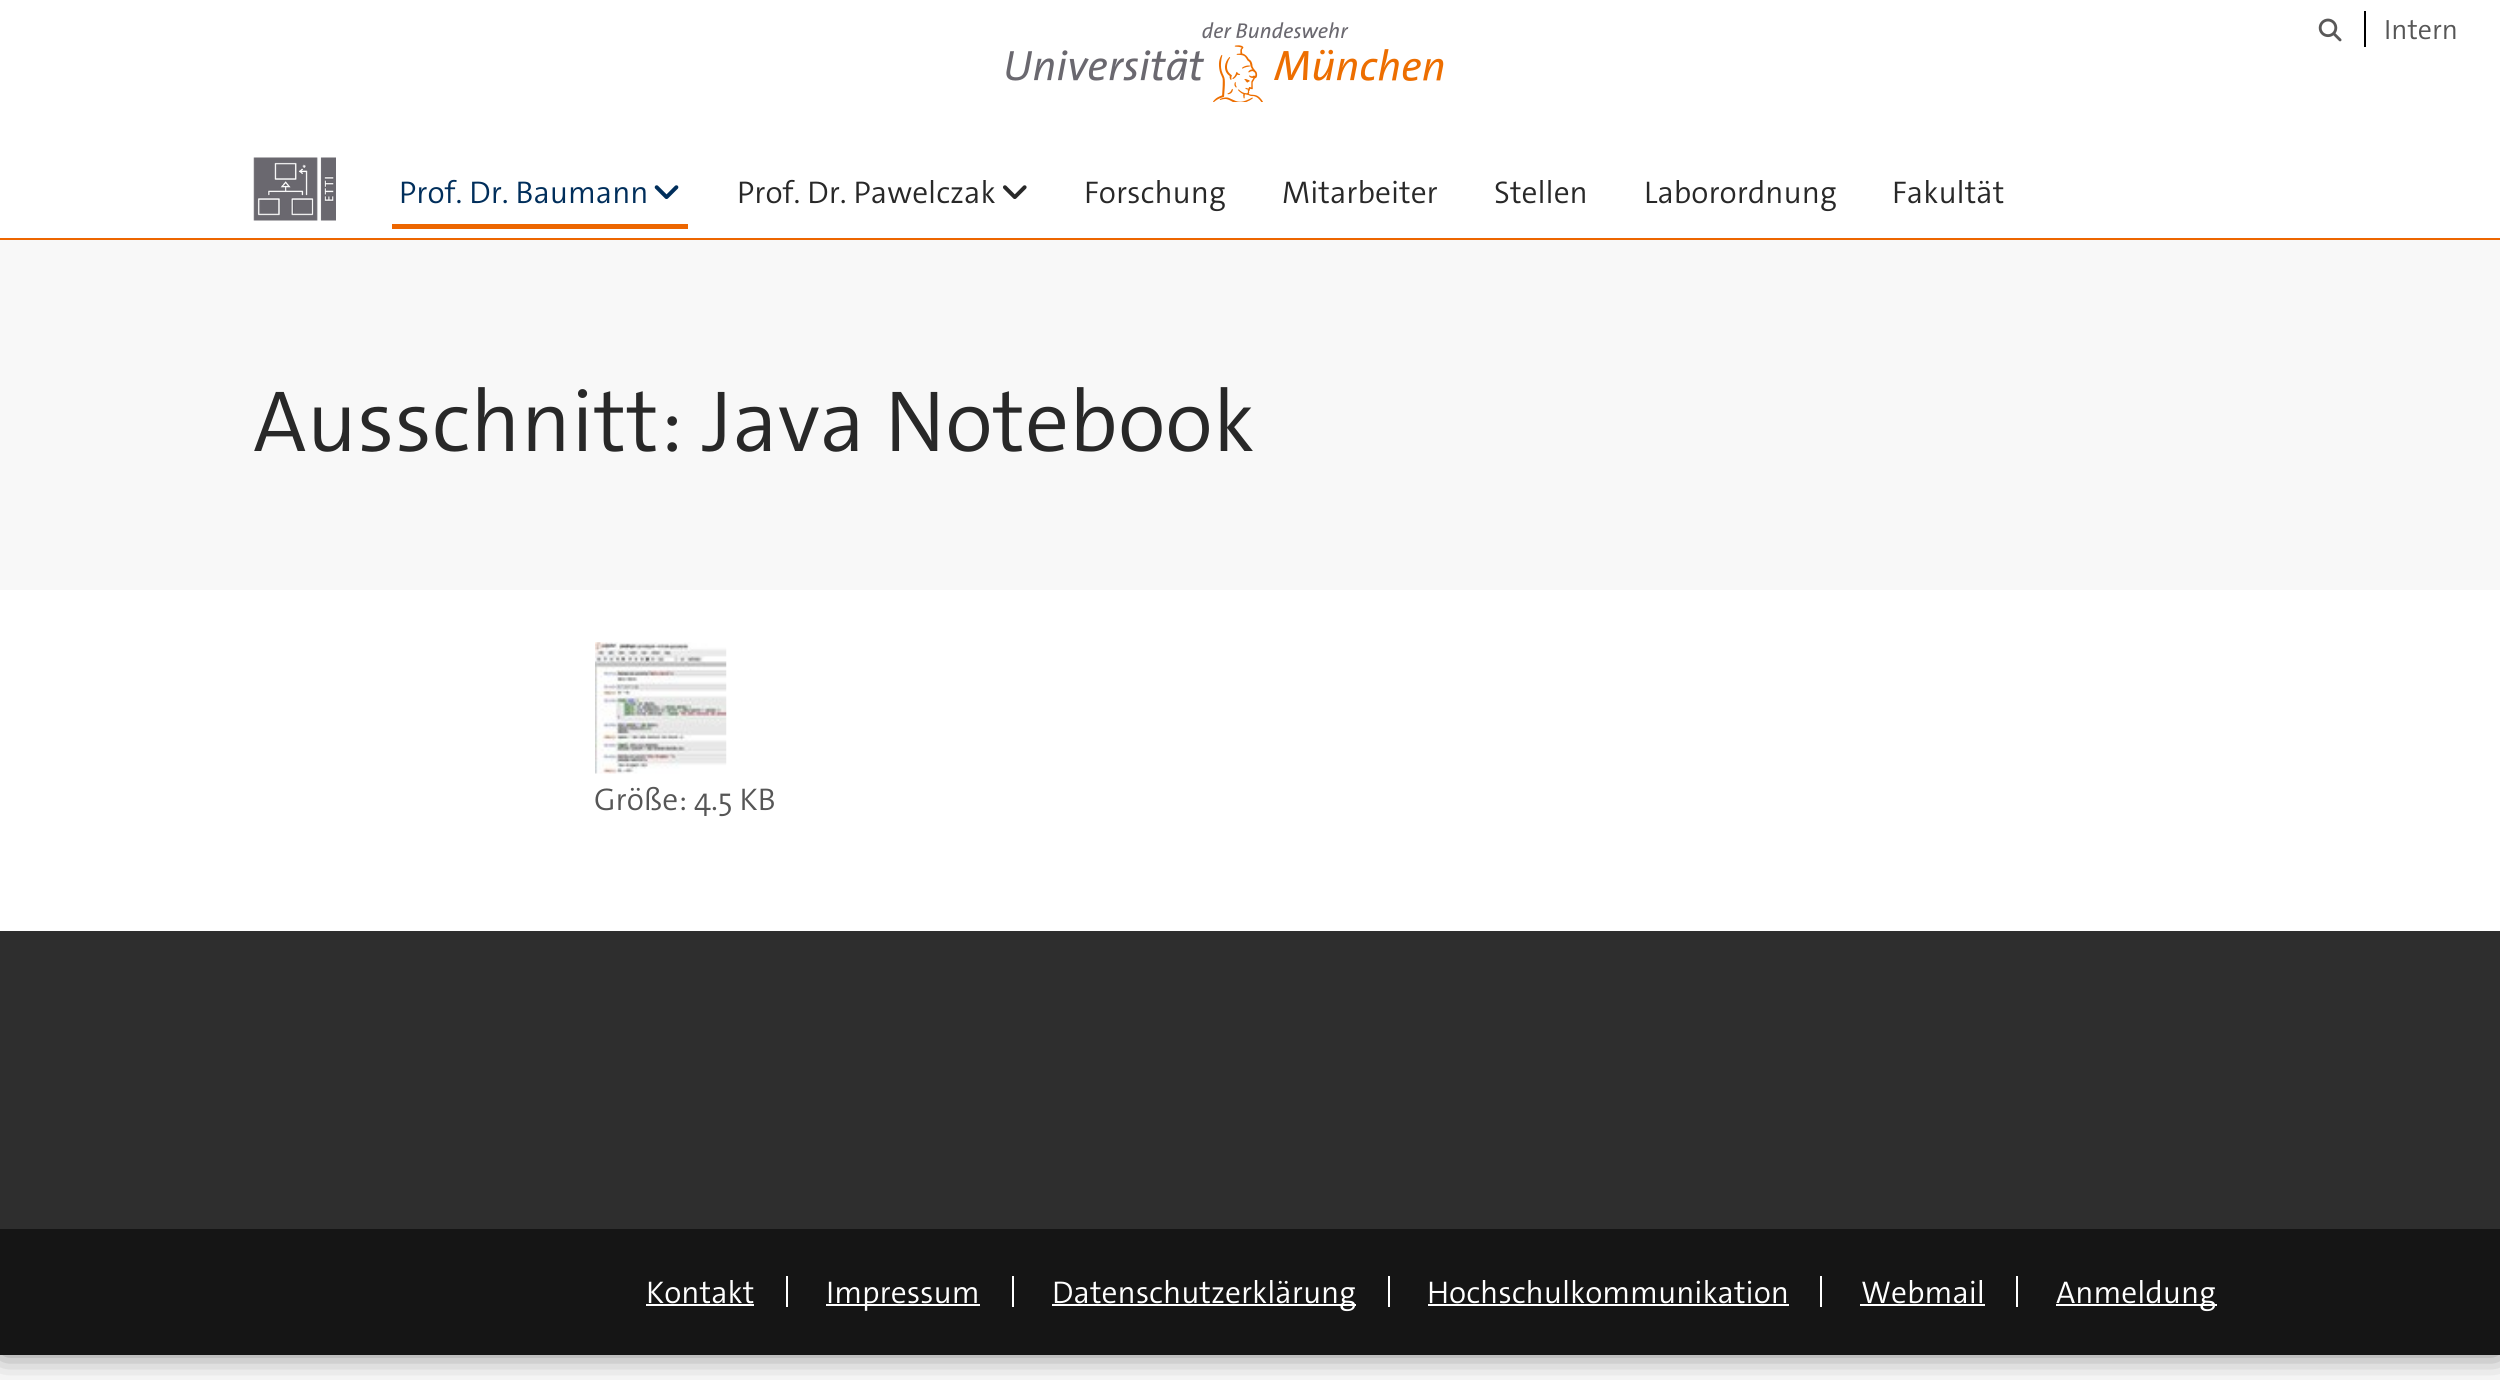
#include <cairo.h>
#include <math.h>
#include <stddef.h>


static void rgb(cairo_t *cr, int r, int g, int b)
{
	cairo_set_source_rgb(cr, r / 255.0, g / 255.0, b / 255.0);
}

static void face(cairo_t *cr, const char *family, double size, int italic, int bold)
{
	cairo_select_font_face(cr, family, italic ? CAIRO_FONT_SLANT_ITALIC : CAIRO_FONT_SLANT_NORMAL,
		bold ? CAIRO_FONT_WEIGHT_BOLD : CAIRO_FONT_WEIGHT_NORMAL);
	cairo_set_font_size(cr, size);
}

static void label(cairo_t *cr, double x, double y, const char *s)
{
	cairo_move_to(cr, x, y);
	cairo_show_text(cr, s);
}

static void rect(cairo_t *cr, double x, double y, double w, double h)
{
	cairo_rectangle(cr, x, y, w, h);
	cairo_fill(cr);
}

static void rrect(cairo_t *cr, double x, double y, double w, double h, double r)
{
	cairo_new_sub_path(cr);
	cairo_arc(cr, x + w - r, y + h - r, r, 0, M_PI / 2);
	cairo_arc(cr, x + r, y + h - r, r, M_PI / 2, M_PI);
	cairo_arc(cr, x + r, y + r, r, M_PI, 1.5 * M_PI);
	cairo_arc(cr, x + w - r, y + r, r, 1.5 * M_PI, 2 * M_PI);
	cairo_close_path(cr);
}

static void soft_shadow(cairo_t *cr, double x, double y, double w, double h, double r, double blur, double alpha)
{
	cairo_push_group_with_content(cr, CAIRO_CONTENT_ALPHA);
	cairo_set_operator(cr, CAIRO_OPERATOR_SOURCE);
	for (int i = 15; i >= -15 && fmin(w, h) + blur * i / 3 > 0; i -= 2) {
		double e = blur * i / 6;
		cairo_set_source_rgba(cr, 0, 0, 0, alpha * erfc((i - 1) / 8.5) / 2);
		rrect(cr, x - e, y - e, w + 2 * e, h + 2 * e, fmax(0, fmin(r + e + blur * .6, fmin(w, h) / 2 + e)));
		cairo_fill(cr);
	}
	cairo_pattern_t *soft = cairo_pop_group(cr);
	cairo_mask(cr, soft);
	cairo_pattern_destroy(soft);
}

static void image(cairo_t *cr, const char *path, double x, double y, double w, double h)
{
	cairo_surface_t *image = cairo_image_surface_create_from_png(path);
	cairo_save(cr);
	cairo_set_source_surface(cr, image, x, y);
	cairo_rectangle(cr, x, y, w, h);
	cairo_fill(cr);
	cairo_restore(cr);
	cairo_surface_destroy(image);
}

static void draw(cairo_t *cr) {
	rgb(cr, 255, 255, 255);
	cairo_paint(cr);
	cairo_save(cr);
	cairo_rectangle(cr, 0, 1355, 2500, 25);
	cairo_clip(cr);
	rgb(cr, 0, 0, 0);
	soft_shadow(cr, 0, 0, 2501, 1355, 0, 17.5, 0.5);
	cairo_restore(cr);
	rgb(cr, 237, 102, 0);
	rect(cr, 0, 238, 2500, 2);
	image(cr, "image0.png", 1213, 45, 50, 57);
	image(cr, "image1.png", 1006, 22, 438, 59);
	image(cr, "image2.png", 2318, 18, 24, 24);
	face(cr, "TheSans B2 Light", 28, 0, 0);
	rgb(cr, 86, 86, 86);
	label(cr, 2384, 39, "Intern");
	rgb(cr, 0, 0, 0);
	rect(cr, 2364, 11, 2, 36);
	image(cr, "image3.png", 253, 157, 83, 64);
	rgb(cr, 237, 102, 0);
	rect(cr, 392, 224, 296, 5);
	face(cr, "TheSans B2 Light", 31.5, 0, 0);
	rgb(cr, 0, 46, 91);
	label(cr, 399, 203, "Prof. Dr. Baumann");
	image(cr, "image4.png", 654, 185, 25, 14);
	rgb(cr, 40, 40, 40);
	label(cr, 737, 203, "Prof. Dr. Pawelczak");
	image(cr, "image5.png", 1003, 185, 24, 14);
	label(cr, 1084, 203, "Forschung");
	label(cr, 1282, 203, "Mitarbeiter");
	label(cr, 1494, 203, "Stellen");
	label(cr, 1644, 203, "Laborordnung");
	label(cr, 1892, 203, "Fakultät");
	rgb(cr, 248, 248, 248);
	rect(cr, 0, 240, 2500, 350);
	face(cr, "TheSans B2 Light", 87.5, 0, 0);
	rgb(cr, 40, 40, 40);
	label(cr, 253, 451, "Ausschnitt: Java Notebook");
	image(cr, "image6.png", 595, 642, 132, 132);
	face(cr, "TheSans B2 Light", 31.5, 0, 0);
	rgb(cr, 86, 86, 86);
	label(cr, 594, 810, "Größe: 4.5 KB");
	rgb(cr, 46, 46, 46);
	rect(cr, 0, 931, 2500, 298);
	rgb(cr, 21, 21, 21);
	rect(cr, 0, 1229, 2500, 126);
	rgb(cr, 255, 255, 255);
	rect(cr, 786, 1276, 2, 31);
	label(cr, 646, 1303, "Kontakt");
	rect(cr, 646, 1304, 108, 2);
	rect(cr, 1012, 1276, 2, 31);
	rect(cr, 826, 1304, 154, 2);
	label(cr, 826, 1303, "Impressum");
	rect(cr, 1388, 1276, 2, 31);
	rect(cr, 1052, 1304, 304, 2);
	label(cr, 1052, 1303, "Datenschutzerklärung");
	rect(cr, 1820, 1276, 2, 31);
	label(cr, 1427, 1303, "Hochschulkommunikation");
	rect(cr, 1428, 1304, 361, 2);
	rect(cr, 2016, 1276, 2, 31);
	label(cr, 1861, 1303, "Webmail");
	rect(cr, 1860, 1304, 125, 2);
	rect(cr, 2056, 1304, 161, 2);
	label(cr, 2056, 1303, "Anmeldung");
}

int main(void) {
	cairo_surface_t *surface = cairo_image_surface_create(CAIRO_FORMAT_RGB24, 2500, 1380);
	cairo_t *cr = cairo_create(surface);
	cairo_font_options_t *options = cairo_font_options_create();
	cairo_font_options_set_hint_metrics(options, CAIRO_HINT_METRICS_OFF);
	cairo_font_options_set_hint_style(options, CAIRO_HINT_STYLE_NONE);
	cairo_set_font_options(cr, options);
	cairo_set_miter_limit(cr, 4);
	draw(cr);
	cairo_surface_write_to_png(surface, "render.png");
	cairo_font_options_destroy(options);
	cairo_destroy(cr);
	cairo_surface_destroy(surface);
	return 0;
}
